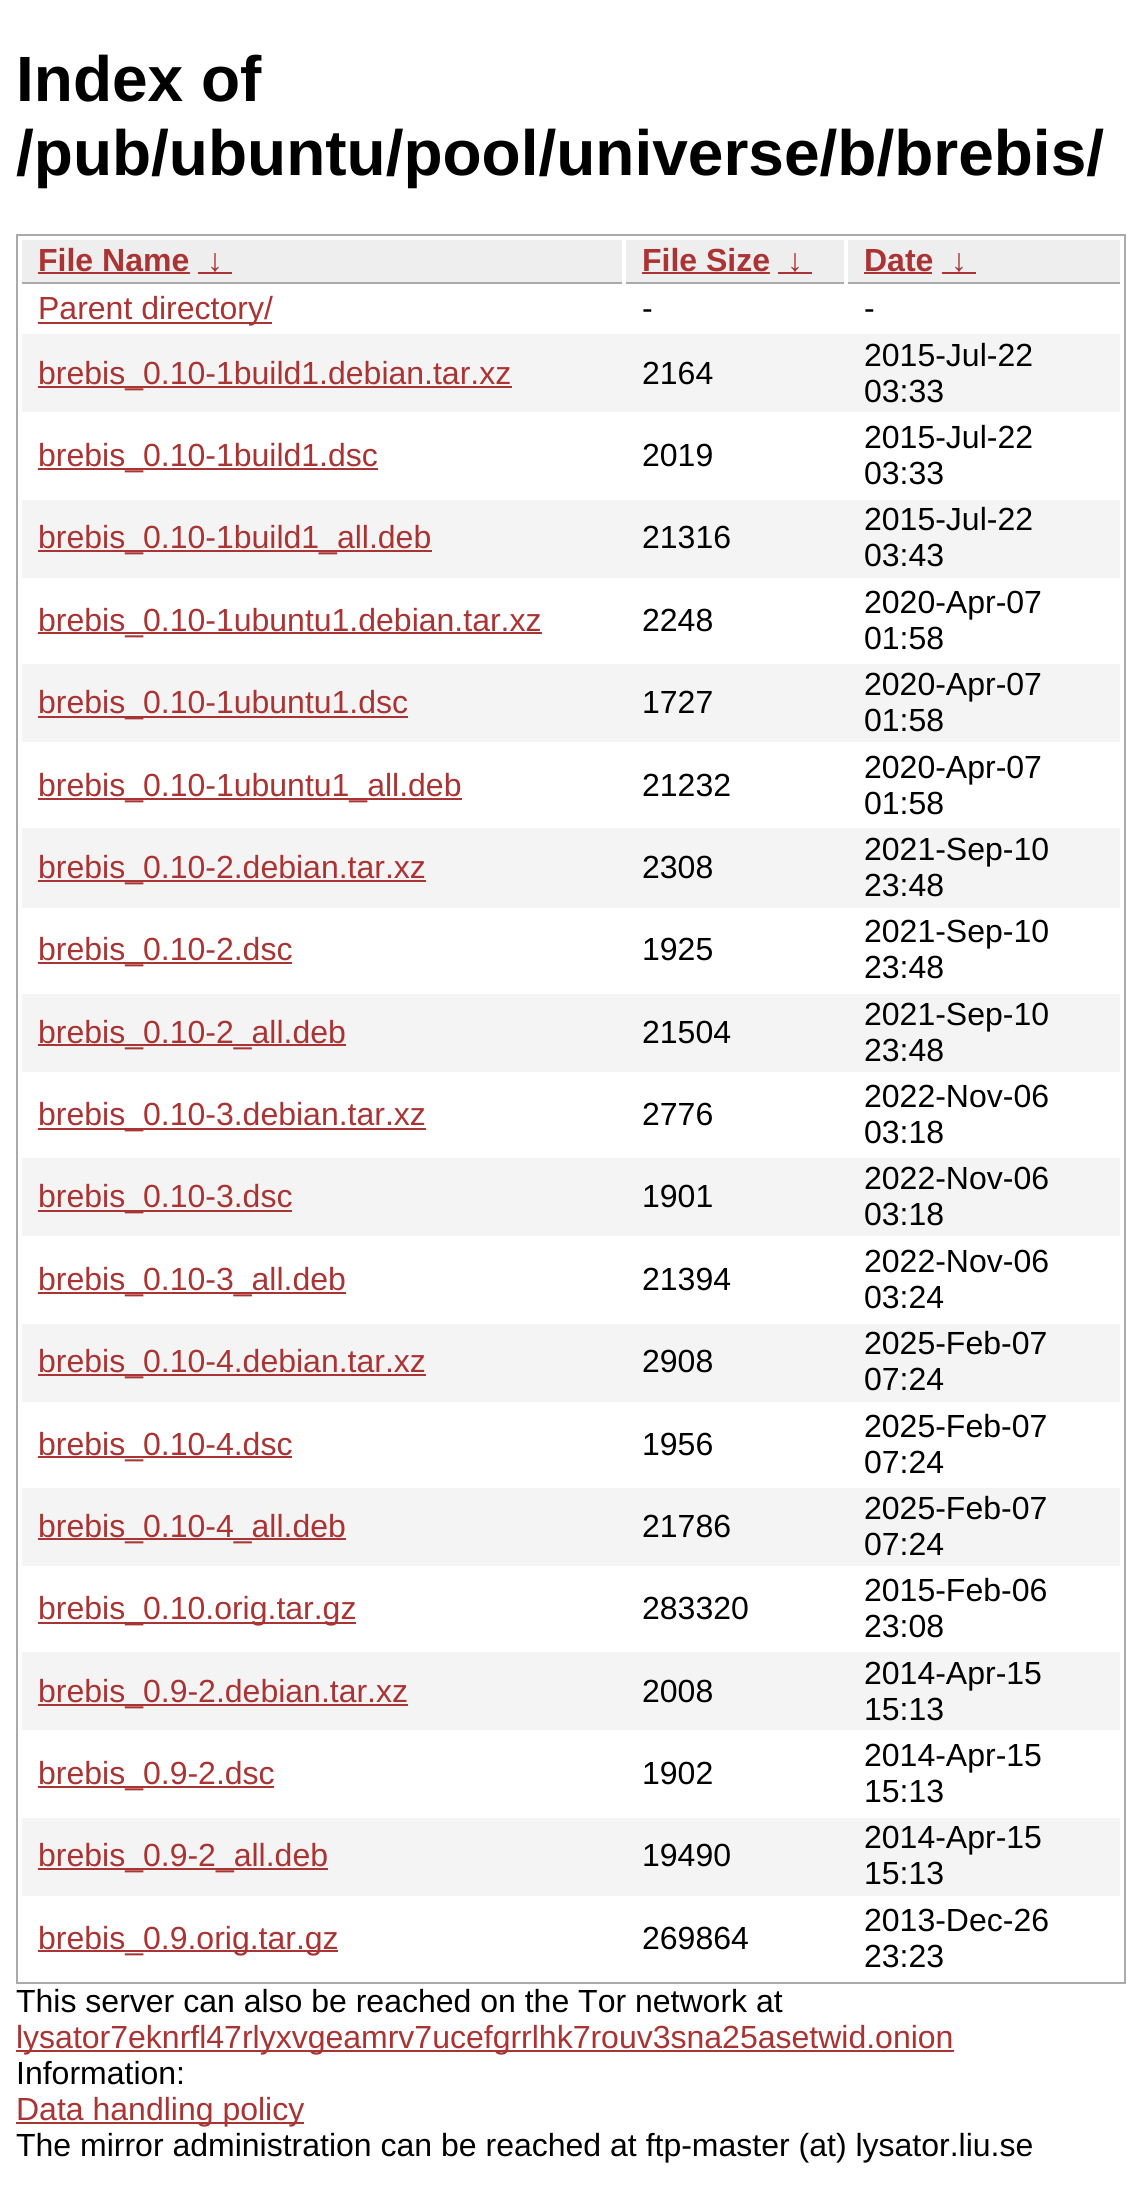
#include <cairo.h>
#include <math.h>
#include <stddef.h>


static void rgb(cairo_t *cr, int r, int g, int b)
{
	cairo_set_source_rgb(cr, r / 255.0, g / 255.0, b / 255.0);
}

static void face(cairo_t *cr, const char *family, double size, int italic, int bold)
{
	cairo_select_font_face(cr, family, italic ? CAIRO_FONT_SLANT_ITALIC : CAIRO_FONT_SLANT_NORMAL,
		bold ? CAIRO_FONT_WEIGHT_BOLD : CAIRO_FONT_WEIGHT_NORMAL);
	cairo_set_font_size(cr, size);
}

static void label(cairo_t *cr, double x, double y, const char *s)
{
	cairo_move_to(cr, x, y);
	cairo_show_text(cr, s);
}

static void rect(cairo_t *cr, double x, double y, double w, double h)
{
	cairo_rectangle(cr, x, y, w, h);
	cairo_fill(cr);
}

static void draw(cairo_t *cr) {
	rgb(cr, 255, 255, 255);
	cairo_paint(cr);
	face(cr, "Liberation Sans", 64, 0, 1);
	rgb(cr, 0, 0, 0);
	label(cr, 16, 101, "Index of");
	label(cr, 16, 175, "/pub/ubuntu/pool/universe/b/brebis/");
	cairo_rectangle(cr, 17, 235, 1108, 1748);
	rgb(cr, 170, 170, 170);
	cairo_stroke(cr);
	rgb(cr, 238, 238, 238);
	rect(cr, 22, 240, 600, 42);
	rgb(cr, 170, 170, 170);
	rect(cr, 22, 282, 600, 2);
	face(cr, "Liberation Sans", 32, 0, 1);
	rgb(cr, 170, 51, 51);
	label(cr, 38, 271, "File Name");
	rect(cr, 38, 272, 152, 2);
	label(cr, 207, 271, "↓");
	rect(cr, 198, 272, 34, 2);
	rgb(cr, 238, 238, 238);
	rect(cr, 626, 240, 218, 42);
	rgb(cr, 170, 170, 170);
	rect(cr, 626, 282, 218, 2);
	rgb(cr, 170, 51, 51);
	label(cr, 642, 271, "File Size");
	rect(cr, 642, 272, 128, 2);
	label(cr, 787, 271, "↓");
	rect(cr, 778, 272, 34, 2);
	rgb(cr, 238, 238, 238);
	rect(cr, 848, 240, 272, 42);
	rgb(cr, 170, 170, 170);
	rect(cr, 848, 282, 272, 2);
	rgb(cr, 170, 51, 51);
	label(cr, 864, 271, "Date");
	rect(cr, 864, 272, 68, 2);
	label(cr, 951, 271, "↓");
	rect(cr, 942, 272, 34, 2);
	rect(cr, 38, 322, 234, 2);
	face(cr, "Liberation Sans", 32, 0, 0);
	label(cr, 38, 319, "Parent directory/");
	rgb(cr, 0, 0, 0);
	label(cr, 642, 319, "-");
	label(cr, 864, 319, "-");
	rgb(cr, 244, 244, 244);
	rect(cr, 22, 334, 1098, 78);
	rgb(cr, 170, 51, 51);
	rect(cr, 38, 386, 474, 2);
	label(cr, 38, 384, "brebis_0.10-1build1.debian.tar.xz");
	rgb(cr, 0, 0, 0);
	label(cr, 642, 384, "2164");
	label(cr, 864, 366, "2015-Jul-22");
	label(cr, 864, 402, "03:33");
	rgb(cr, 170, 51, 51);
	rect(cr, 38, 468, 340, 2);
	label(cr, 38, 466, "brebis_0.10-1build1.dsc");
	rgb(cr, 0, 0, 0);
	label(cr, 642, 466, "2019");
	label(cr, 864, 448, "2015-Jul-22");
	label(cr, 864, 484, "03:33");
	rgb(cr, 244, 244, 244);
	rect(cr, 22, 500, 1098, 78);
	rgb(cr, 170, 51, 51);
	rect(cr, 38, 550, 394, 2);
	label(cr, 38, 548, "brebis_0.10-1build1_all.deb");
	rgb(cr, 0, 0, 0);
	label(cr, 642, 548, "21316");
	label(cr, 864, 530, "2015-Jul-22");
	label(cr, 864, 566, "03:43");
	rgb(cr, 170, 51, 51);
	rect(cr, 38, 632, 504, 2);
	label(cr, 38, 631, "brebis_0.10-1ubuntu1.debian.tar.xz");
	rgb(cr, 0, 0, 0);
	label(cr, 642, 631, "2248");
	label(cr, 864, 613, "2020-Apr-07");
	label(cr, 864, 649, "01:58");
	rgb(cr, 244, 244, 244);
	rect(cr, 22, 664, 1098, 78);
	rgb(cr, 170, 51, 51);
	rect(cr, 38, 716, 370, 2);
	label(cr, 38, 713, "brebis_0.10-1ubuntu1.dsc");
	rgb(cr, 0, 0, 0);
	label(cr, 642, 713, "1727");
	label(cr, 864, 695, "2020-Apr-07");
	label(cr, 864, 731, "01:58");
	rgb(cr, 170, 51, 51);
	rect(cr, 38, 798, 424, 2);
	label(cr, 38, 796, "brebis_0.10-1ubuntu1_all.deb");
	rgb(cr, 0, 0, 0);
	label(cr, 642, 796, "21232");
	label(cr, 864, 778, "2020-Apr-07");
	label(cr, 864, 814, "01:58");
	rgb(cr, 244, 244, 244);
	rect(cr, 22, 828, 1098, 80);
	rgb(cr, 170, 51, 51);
	rect(cr, 38, 880, 388, 2);
	label(cr, 38, 878, "brebis_0.10-2.debian.tar.xz");
	rgb(cr, 0, 0, 0);
	label(cr, 642, 878, "2308");
	label(cr, 864, 860, "2021-Sep-10");
	label(cr, 864, 896, "23:48");
	rgb(cr, 170, 51, 51);
	rect(cr, 38, 962, 254, 2);
	label(cr, 38, 960, "brebis_0.10-2.dsc");
	rgb(cr, 0, 0, 0);
	label(cr, 642, 960, "1925");
	label(cr, 864, 942, "2021-Sep-10");
	label(cr, 864, 978, "23:48");
	rgb(cr, 244, 244, 244);
	rect(cr, 22, 994, 1098, 78);
	rgb(cr, 170, 51, 51);
	rect(cr, 38, 1044, 308, 2);
	label(cr, 38, 1043, "brebis_0.10-2_all.deb");
	rgb(cr, 0, 0, 0);
	label(cr, 642, 1043, "21504");
	label(cr, 864, 1025, "2021-Sep-10");
	label(cr, 864, 1061, "23:48");
	rgb(cr, 170, 51, 51);
	rect(cr, 38, 1128, 388, 2);
	label(cr, 38, 1125, "brebis_0.10-3.debian.tar.xz");
	rgb(cr, 0, 0, 0);
	label(cr, 642, 1125, "2776");
	label(cr, 864, 1107, "2022-Nov-06");
	label(cr, 864, 1143, "03:18");
	rgb(cr, 244, 244, 244);
	rect(cr, 22, 1158, 1098, 78);
	rgb(cr, 170, 51, 51);
	rect(cr, 38, 1210, 254, 2);
	label(cr, 38, 1207, "brebis_0.10-3.dsc");
	rgb(cr, 0, 0, 0);
	label(cr, 642, 1207, "1901");
	label(cr, 864, 1189, "2022-Nov-06");
	label(cr, 864, 1225, "03:18");
	rgb(cr, 170, 51, 51);
	rect(cr, 38, 1292, 308, 2);
	label(cr, 38, 1290, "brebis_0.10-3_all.deb");
	rgb(cr, 0, 0, 0);
	label(cr, 642, 1290, "21394");
	label(cr, 864, 1272, "2022-Nov-06");
	label(cr, 864, 1308, "03:24");
	rgb(cr, 244, 244, 244);
	rect(cr, 22, 1324, 1098, 78);
	rgb(cr, 170, 51, 51);
	rect(cr, 38, 1374, 388, 2);
	label(cr, 38, 1372, "brebis_0.10-4.debian.tar.xz");
	rgb(cr, 0, 0, 0);
	label(cr, 642, 1372, "2908");
	label(cr, 864, 1354, "2025-Feb-07");
	label(cr, 864, 1390, "07:24");
	rgb(cr, 170, 51, 51);
	rect(cr, 38, 1456, 254, 2);
	label(cr, 38, 1455, "brebis_0.10-4.dsc");
	rgb(cr, 0, 0, 0);
	label(cr, 642, 1455, "1956");
	label(cr, 864, 1437, "2025-Feb-07");
	label(cr, 864, 1473, "07:24");
	rgb(cr, 244, 244, 244);
	rect(cr, 22, 1488, 1098, 78);
	rgb(cr, 170, 51, 51);
	rect(cr, 38, 1538, 308, 2);
	label(cr, 38, 1537, "brebis_0.10-4_all.deb");
	rgb(cr, 0, 0, 0);
	label(cr, 642, 1537, "21786");
	label(cr, 864, 1519, "2025-Feb-07");
	label(cr, 864, 1555, "07:24");
	rgb(cr, 170, 51, 51);
	rect(cr, 38, 1622, 318, 2);
	label(cr, 38, 1619, "brebis_0.10.orig.tar.gz");
	rgb(cr, 0, 0, 0);
	label(cr, 642, 1619, "283320");
	label(cr, 864, 1601, "2015-Feb-06");
	label(cr, 864, 1637, "23:08");
	rgb(cr, 244, 244, 244);
	rect(cr, 22, 1652, 1098, 78);
	rgb(cr, 170, 51, 51);
	rect(cr, 38, 1704, 370, 2);
	label(cr, 38, 1702, "brebis_0.9-2.debian.tar.xz");
	rgb(cr, 0, 0, 0);
	label(cr, 642, 1702, "2008");
	label(cr, 864, 1684, "2014-Apr-15");
	label(cr, 864, 1720, "15:13");
	rgb(cr, 170, 51, 51);
	rect(cr, 38, 1786, 236, 2);
	label(cr, 38, 1784, "brebis_0.9-2.dsc");
	rgb(cr, 0, 0, 0);
	label(cr, 642, 1784, "1902");
	label(cr, 864, 1766, "2014-Apr-15");
	label(cr, 864, 1802, "15:13");
	rgb(cr, 244, 244, 244);
	rect(cr, 22, 1818, 1098, 78);
	rgb(cr, 170, 51, 51);
	rect(cr, 38, 1868, 290, 2);
	label(cr, 38, 1866, "brebis_0.9-2_all.deb");
	rgb(cr, 0, 0, 0);
	label(cr, 642, 1866, "19490");
	label(cr, 864, 1848, "2014-Apr-15");
	label(cr, 864, 1884, "15:13");
	rgb(cr, 170, 51, 51);
	rect(cr, 38, 1950, 300, 2);
	label(cr, 38, 1949, "brebis_0.9.orig.tar.gz");
	rgb(cr, 0, 0, 0);
	label(cr, 642, 1949, "269864");
	label(cr, 864, 1931, "2013-Dec-26");
	label(cr, 864, 1967, "23:23");
	label(cr, 16, 2012, "This server can also be reached on the Tor network at");
	rgb(cr, 170, 51, 51);
	rect(cr, 16, 2050, 938, 2);
	label(cr, 16, 2048, "lysator7eknrfl47rlyxvgeamrv7ucefgrrlhk7rouv3sna25asetwid.onion");
	rgb(cr, 0, 0, 0);
	label(cr, 16, 2084, "Information:");
	rgb(cr, 170, 51, 51);
	rect(cr, 16, 2122, 288, 2);
	label(cr, 16, 2120, "Data handling policy");
	rgb(cr, 0, 0, 0);
	label(cr, 16, 2156, "The mirror administration can be reached at ftp-master (at) lysator.liu.se");
}

int main(void) {
	cairo_surface_t *surface = cairo_image_surface_create(CAIRO_FORMAT_RGB24, 1141, 2208);
	cairo_t *cr = cairo_create(surface);
	cairo_font_options_t *options = cairo_font_options_create();
	cairo_font_options_set_hint_metrics(options, CAIRO_HINT_METRICS_OFF);
	cairo_font_options_set_hint_style(options, CAIRO_HINT_STYLE_NONE);
	cairo_set_font_options(cr, options);
	cairo_set_miter_limit(cr, 4);
	draw(cr);
	cairo_surface_write_to_png(surface, "render.png");
	cairo_font_options_destroy(options);
	cairo_destroy(cr);
	cairo_surface_destroy(surface);
	return 0;
}
